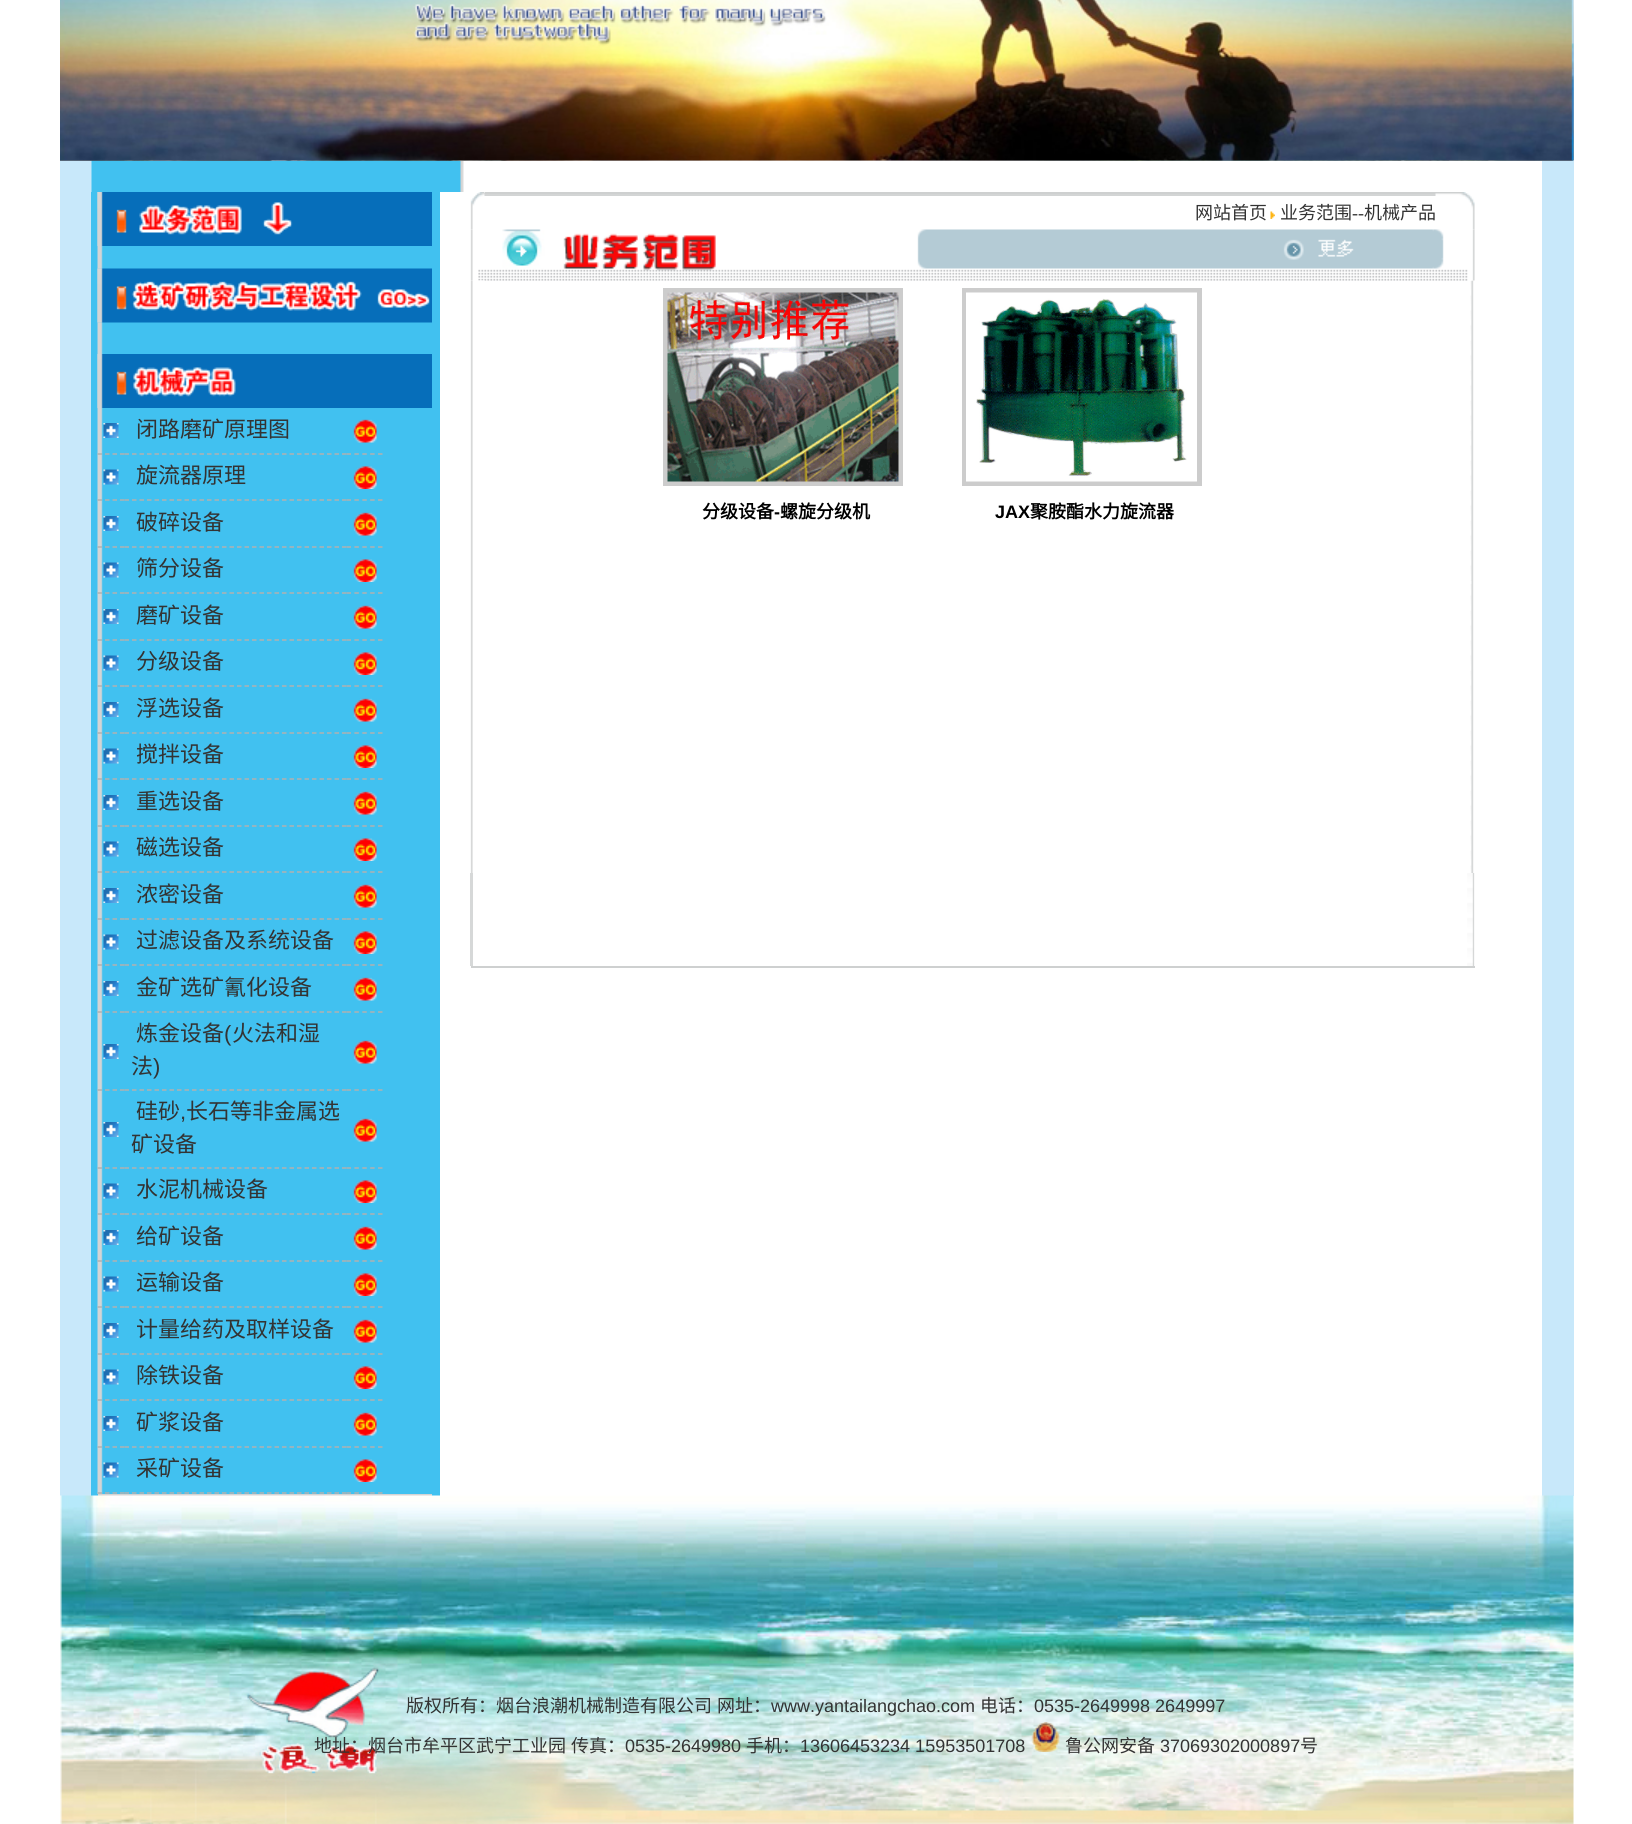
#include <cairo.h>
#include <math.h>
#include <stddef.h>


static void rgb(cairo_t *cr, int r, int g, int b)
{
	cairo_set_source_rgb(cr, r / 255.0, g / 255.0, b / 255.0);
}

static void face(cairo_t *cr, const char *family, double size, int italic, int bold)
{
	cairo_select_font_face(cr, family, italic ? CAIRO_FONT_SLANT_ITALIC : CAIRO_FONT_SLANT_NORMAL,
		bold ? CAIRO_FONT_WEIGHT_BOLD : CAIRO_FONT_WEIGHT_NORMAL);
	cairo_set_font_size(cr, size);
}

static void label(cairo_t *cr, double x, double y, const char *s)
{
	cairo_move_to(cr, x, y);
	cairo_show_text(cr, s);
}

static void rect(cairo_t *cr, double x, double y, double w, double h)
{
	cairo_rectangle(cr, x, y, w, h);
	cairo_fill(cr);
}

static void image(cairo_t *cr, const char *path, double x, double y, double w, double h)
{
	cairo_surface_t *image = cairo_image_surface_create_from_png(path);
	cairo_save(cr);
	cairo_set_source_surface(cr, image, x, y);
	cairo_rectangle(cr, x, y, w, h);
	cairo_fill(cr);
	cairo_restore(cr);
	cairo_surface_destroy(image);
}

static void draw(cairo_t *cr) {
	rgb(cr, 255, 255, 255);
	cairo_paint(cr);
	rgb(cr, 200, 232, 250);
	rect(cr, 60, 161, 32, 31);
	image(cr, "image2.png", 91, 160, 373, 32);
	image(cr, "image0.png", 60, 0, 1514, 161);
	image(cr, "image1.png", 60, 0, 1514, 161);
	rect(cr, 1542, 161, 32, 1335);
	rect(cr, 60, 192, 31, 1304);
	rgb(cr, 211, 213, 213);
	rect(cr, 484, 193, 952, 3);
	image(cr, "image3.png", 470, 192, 15, 38);
	rgb(cr, 206, 208, 208);
	rect(cr, 485, 192, 951, 2);
	face(cr, "Noto Sans CJK SC", 18, 0, 0);
	rgb(cr, 51, 51, 51);
	label(cr, 1195, 219, "网站首页");
	image(cr, "image4.png", 1270, 211, 5, 8);
	label(cr, 1280, 219, "业务范围");
	face(cr, "Liberation Serif", 18, 0, 0);
	label(cr, 1352, 219, "--");
	face(cr, "Noto Sans CJK SC", 18, 0, 0);
	label(cr, 1364, 219, "机械产品");
	image(cr, "image5.png", 1435, 192, 40, 38);
	image(cr, "image6.png", 470, 229, 14, 52);
	image(cr, "image11.png", 1470, 280, 4, 593);
	image(cr, "image7.png", 484, 229, 991, 52);
	image(cr, "image8.png", 470, 280, 15, 593);
	cairo_rectangle(cr, 665.5, 290.5, 235, 193);
	rgb(cr, 204, 204, 204);
	cairo_set_line_width(cr, 5);
	cairo_stroke(cr);
	image(cr, "image9.png", 667, 292, 232, 190);
	face(cr, "Noto Sans CJK SC", 18, 0, 1);
	rgb(cr, 0, 0, 0);
	label(cr, 702, 518, "分级设备");
	face(cr, "Liberation Sans", 18, 0, 1);
	label(cr, 774, 518, "-");
	face(cr, "Noto Sans CJK SC", 18, 0, 1);
	label(cr, 780, 518, "螺旋分级机");
	cairo_rectangle(cr, 964.5, 290.5, 235, 193);
	rgb(cr, 204, 204, 204);
	cairo_stroke(cr);
	image(cr, "image10.png", 966, 292, 231, 190);
	face(cr, "Liberation Sans", 18, 0, 1);
	rgb(cr, 0, 0, 0);
	label(cr, 995, 518, "JAX");
	face(cr, "Noto Sans CJK SC", 18, 0, 1);
	label(cr, 1030, 518, "聚胺酯水力旋流器");
	image(cr, "image12.png", 1470, 581, 2, 3);
	rgb(cr, 214, 216, 216);
	rect(cr, 470, 873, 3, 93);
	image(cr, "image13.png", 1467, 873, 7, 93);
	rgb(cr, 249, 249, 249);
	rect(cr, 1474, 873, 1, 93);
	rgb(cr, 206, 208, 208);
	rect(cr, 471, 966, 1004, 2);
	rgb(cr, 65, 193, 240);
	rect(cr, 91, 192, 349, 1304);
	rgb(cr, 212, 212, 212);
	rect(cr, 98, 1494, 334, 2);
	image(cr, "image14.png", 97, 192, 6, 77);
	image(cr, "image15.png", 97, 192, 335, 54);
	image(cr, "image16.png", 97, 268, 6, 55);
	image(cr, "image18.png", 97, 322, 6, 32);
	image(cr, "image17.png", 97, 268, 335, 55);
	image(cr, "image19.png", 97, 354, 1, 54);
	image(cr, "image20.png", 97, 354, 335, 54);
	image(cr, "image21.png", 97, 408, 6, 1086);
	cairo_new_path(cr);
	cairo_move_to(cr, 97.5, 454);
	cairo_line_to(cr, 124.5, 454);
	rgb(cr, 176, 176, 176);
	cairo_set_line_width(cr, 1.5);
	cairo_set_dash(cr, (double[]){4.5, 3}, 2, 0);
	cairo_stroke(cr);
	image(cr, "image22.png", 103, 423, 16, 15);
	cairo_new_path(cr);
	cairo_move_to(cr, 124.5, 454);
	cairo_line_to(cr, 346.5, 454);
	cairo_stroke(cr);
	face(cr, "Noto Sans CJK SC", 22, 0, 0);
	rgb(cr, 51, 51, 51);
	label(cr, 136, 437, "闭路磨矿原理图");
	cairo_new_path(cr);
	cairo_move_to(cr, 346.5, 454);
	cairo_line_to(cr, 382.5, 454);
	rgb(cr, 176, 176, 176);
	cairo_set_dash(cr, (double[]){4.5, 3.38}, 2, 0);
	cairo_stroke(cr);
	image(cr, "image23.png", 353, 419, 24, 24);
	cairo_new_path(cr);
	cairo_move_to(cr, 97.5, 500);
	cairo_line_to(cr, 124.5, 500);
	cairo_set_dash(cr, (double[]){4.5, 3}, 2, 0);
	cairo_stroke(cr);
	image(cr, "image24.png", 103, 469, 16, 16);
	cairo_new_path(cr);
	cairo_move_to(cr, 124.5, 500);
	cairo_line_to(cr, 346.5, 500);
	cairo_stroke(cr);
	rgb(cr, 51, 51, 51);
	label(cr, 136, 483, "旋流器原理");
	cairo_new_path(cr);
	cairo_move_to(cr, 346.5, 500);
	cairo_line_to(cr, 382.5, 500);
	rgb(cr, 176, 176, 176);
	cairo_set_dash(cr, (double[]){4.5, 3.38}, 2, 0);
	cairo_stroke(cr);
	image(cr, "image25.png", 353, 466, 24, 23);
	cairo_new_path(cr);
	cairo_move_to(cr, 97.5, 547);
	cairo_line_to(cr, 124.5, 547);
	cairo_set_dash(cr, (double[]){4.5, 3}, 2, 0);
	cairo_stroke(cr);
	image(cr, "image22.png", 103, 516, 16, 15);
	cairo_new_path(cr);
	cairo_move_to(cr, 124.5, 547);
	cairo_line_to(cr, 346.5, 547);
	cairo_stroke(cr);
	rgb(cr, 51, 51, 51);
	label(cr, 136, 530, "破碎设备");
	cairo_new_path(cr);
	cairo_move_to(cr, 346.5, 547);
	cairo_line_to(cr, 382.5, 547);
	rgb(cr, 176, 176, 176);
	cairo_set_dash(cr, (double[]){4.5, 3.38}, 2, 0);
	cairo_stroke(cr);
	image(cr, "image23.png", 353, 512, 24, 24);
	cairo_new_path(cr);
	cairo_move_to(cr, 97.5, 593);
	cairo_line_to(cr, 124.5, 593);
	cairo_set_dash(cr, (double[]){4.5, 3}, 2, 0);
	cairo_stroke(cr);
	image(cr, "image24.png", 103, 562, 16, 16);
	cairo_new_path(cr);
	cairo_move_to(cr, 124.5, 593);
	cairo_line_to(cr, 346.5, 593);
	cairo_stroke(cr);
	rgb(cr, 51, 51, 51);
	label(cr, 136, 576, "筛分设备");
	cairo_new_path(cr);
	cairo_move_to(cr, 346.5, 593);
	cairo_line_to(cr, 382.5, 593);
	rgb(cr, 176, 176, 176);
	cairo_set_dash(cr, (double[]){4.5, 3.38}, 2, 0);
	cairo_stroke(cr);
	image(cr, "image25.png", 353, 559, 24, 23);
	cairo_new_path(cr);
	cairo_move_to(cr, 97.5, 640);
	cairo_line_to(cr, 124.5, 640);
	cairo_set_dash(cr, (double[]){4.5, 3}, 2, 0);
	cairo_stroke(cr);
	image(cr, "image22.png", 103, 609, 16, 15);
	cairo_new_path(cr);
	cairo_move_to(cr, 124.5, 640);
	cairo_line_to(cr, 346.5, 640);
	cairo_stroke(cr);
	rgb(cr, 51, 51, 51);
	label(cr, 136, 623, "磨矿设备");
	cairo_new_path(cr);
	cairo_move_to(cr, 346.5, 640);
	cairo_line_to(cr, 382.5, 640);
	rgb(cr, 176, 176, 176);
	cairo_set_dash(cr, (double[]){4.5, 3.38}, 2, 0);
	cairo_stroke(cr);
	image(cr, "image23.png", 353, 605, 24, 24);
	cairo_new_path(cr);
	cairo_move_to(cr, 97.5, 686);
	cairo_line_to(cr, 124.5, 686);
	cairo_set_dash(cr, (double[]){4.5, 3}, 2, 0);
	cairo_stroke(cr);
	image(cr, "image24.png", 103, 655, 16, 16);
	cairo_new_path(cr);
	cairo_move_to(cr, 124.5, 686);
	cairo_line_to(cr, 346.5, 686);
	cairo_stroke(cr);
	rgb(cr, 51, 51, 51);
	label(cr, 136, 669, "分级设备");
	cairo_new_path(cr);
	cairo_move_to(cr, 346.5, 686);
	cairo_line_to(cr, 382.5, 686);
	rgb(cr, 176, 176, 176);
	cairo_set_dash(cr, (double[]){4.5, 3.38}, 2, 0);
	cairo_stroke(cr);
	image(cr, "image25.png", 353, 652, 24, 23);
	cairo_new_path(cr);
	cairo_move_to(cr, 97.5, 733);
	cairo_line_to(cr, 124.5, 733);
	cairo_set_dash(cr, (double[]){4.5, 3}, 2, 0);
	cairo_stroke(cr);
	image(cr, "image22.png", 103, 702, 16, 15);
	cairo_new_path(cr);
	cairo_move_to(cr, 124.5, 733);
	cairo_line_to(cr, 346.5, 733);
	cairo_stroke(cr);
	rgb(cr, 51, 51, 51);
	label(cr, 136, 716, "浮选设备");
	cairo_new_path(cr);
	cairo_move_to(cr, 346.5, 733);
	cairo_line_to(cr, 382.5, 733);
	rgb(cr, 176, 176, 176);
	cairo_set_dash(cr, (double[]){4.5, 3.38}, 2, 0);
	cairo_stroke(cr);
	image(cr, "image23.png", 353, 698, 24, 24);
	cairo_new_path(cr);
	cairo_move_to(cr, 97.5, 779);
	cairo_line_to(cr, 124.5, 779);
	cairo_set_dash(cr, (double[]){4.5, 3}, 2, 0);
	cairo_stroke(cr);
	image(cr, "image24.png", 103, 748, 16, 16);
	cairo_new_path(cr);
	cairo_move_to(cr, 124.5, 779);
	cairo_line_to(cr, 346.5, 779);
	cairo_stroke(cr);
	rgb(cr, 51, 51, 51);
	label(cr, 136, 762, "搅拌设备");
	cairo_new_path(cr);
	cairo_move_to(cr, 346.5, 779);
	cairo_line_to(cr, 382.5, 779);
	rgb(cr, 176, 176, 176);
	cairo_set_dash(cr, (double[]){4.5, 3.38}, 2, 0);
	cairo_stroke(cr);
	image(cr, "image25.png", 353, 745, 24, 23);
	cairo_new_path(cr);
	cairo_move_to(cr, 97.5, 826);
	cairo_line_to(cr, 124.5, 826);
	cairo_set_dash(cr, (double[]){4.5, 3}, 2, 0);
	cairo_stroke(cr);
	image(cr, "image22.png", 103, 795, 16, 15);
	cairo_new_path(cr);
	cairo_move_to(cr, 124.5, 826);
	cairo_line_to(cr, 346.5, 826);
	cairo_stroke(cr);
	rgb(cr, 51, 51, 51);
	label(cr, 136, 809, "重选设备");
	cairo_new_path(cr);
	cairo_move_to(cr, 346.5, 826);
	cairo_line_to(cr, 382.5, 826);
	rgb(cr, 176, 176, 176);
	cairo_set_dash(cr, (double[]){4.5, 3.38}, 2, 0);
	cairo_stroke(cr);
	image(cr, "image23.png", 353, 791, 24, 24);
	cairo_new_path(cr);
	cairo_move_to(cr, 97.5, 872);
	cairo_line_to(cr, 124.5, 872);
	cairo_set_dash(cr, (double[]){4.5, 3}, 2, 0);
	cairo_stroke(cr);
	image(cr, "image24.png", 103, 841, 16, 16);
	cairo_new_path(cr);
	cairo_move_to(cr, 124.5, 872);
	cairo_line_to(cr, 346.5, 872);
	cairo_stroke(cr);
	rgb(cr, 51, 51, 51);
	label(cr, 136, 855, "磁选设备");
	cairo_new_path(cr);
	cairo_move_to(cr, 346.5, 872);
	cairo_line_to(cr, 382.5, 872);
	rgb(cr, 176, 176, 176);
	cairo_set_dash(cr, (double[]){4.5, 3.38}, 2, 0);
	cairo_stroke(cr);
	image(cr, "image25.png", 353, 838, 24, 23);
	cairo_new_path(cr);
	cairo_move_to(cr, 97.5, 919);
	cairo_line_to(cr, 124.5, 919);
	cairo_set_dash(cr, (double[]){4.5, 3}, 2, 0);
	cairo_stroke(cr);
	image(cr, "image22.png", 103, 888, 16, 15);
	cairo_new_path(cr);
	cairo_move_to(cr, 124.5, 919);
	cairo_line_to(cr, 346.5, 919);
	cairo_stroke(cr);
	rgb(cr, 51, 51, 51);
	label(cr, 136, 902, "浓密设备");
	cairo_new_path(cr);
	cairo_move_to(cr, 346.5, 919);
	cairo_line_to(cr, 382.5, 919);
	rgb(cr, 176, 176, 176);
	cairo_set_dash(cr, (double[]){4.5, 3.38}, 2, 0);
	cairo_stroke(cr);
	image(cr, "image23.png", 353, 884, 24, 24);
	cairo_new_path(cr);
	cairo_move_to(cr, 97.5, 965);
	cairo_line_to(cr, 124.5, 965);
	cairo_set_dash(cr, (double[]){4.5, 3}, 2, 0);
	cairo_stroke(cr);
	image(cr, "image24.png", 103, 934, 16, 16);
	cairo_new_path(cr);
	cairo_move_to(cr, 124.5, 965);
	cairo_line_to(cr, 346.5, 965);
	cairo_stroke(cr);
	rgb(cr, 51, 51, 51);
	label(cr, 136, 948, "过滤设备及系统设备");
	cairo_new_path(cr);
	cairo_move_to(cr, 346.5, 965);
	cairo_line_to(cr, 382.5, 965);
	rgb(cr, 176, 176, 176);
	cairo_set_dash(cr, (double[]){4.5, 3.38}, 2, 0);
	cairo_stroke(cr);
	image(cr, "image25.png", 353, 931, 24, 23);
	cairo_new_path(cr);
	cairo_move_to(cr, 97.5, 1012);
	cairo_line_to(cr, 124.5, 1012);
	cairo_set_dash(cr, (double[]){4.5, 3}, 2, 0);
	cairo_stroke(cr);
	image(cr, "image22.png", 103, 981, 16, 15);
	cairo_new_path(cr);
	cairo_move_to(cr, 124.5, 1012);
	cairo_line_to(cr, 346.5, 1012);
	cairo_stroke(cr);
	rgb(cr, 51, 51, 51);
	label(cr, 136, 995, "金矿选矿氰化设备");
	cairo_new_path(cr);
	cairo_move_to(cr, 346.5, 1012);
	cairo_line_to(cr, 382.5, 1012);
	rgb(cr, 176, 176, 176);
	cairo_set_dash(cr, (double[]){4.5, 3.38}, 2, 0);
	cairo_stroke(cr);
	image(cr, "image23.png", 353, 977, 24, 24);
	cairo_new_path(cr);
	cairo_move_to(cr, 97.5, 1090);
	cairo_line_to(cr, 124.5, 1090);
	cairo_set_dash(cr, (double[]){4.5, 3}, 2, 0);
	cairo_stroke(cr);
	image(cr, "image22.png", 103, 1044, 16, 15);
	cairo_new_path(cr);
	cairo_move_to(cr, 124.5, 1090);
	cairo_line_to(cr, 346.5, 1090);
	cairo_stroke(cr);
	rgb(cr, 51, 51, 51);
	label(cr, 136, 1041, "炼金设备");
	face(cr, "Liberation Sans", 22, 0, 0);
	label(cr, 224, 1041, "(");
	face(cr, "Noto Sans CJK SC", 22, 0, 0);
	label(cr, 232, 1041, "火法和湿");
	label(cr, 131, 1074, "法");
	face(cr, "Liberation Sans", 22, 0, 0);
	label(cr, 153, 1074, ")");
	cairo_new_path(cr);
	cairo_move_to(cr, 346.5, 1090);
	cairo_line_to(cr, 382.5, 1090);
	rgb(cr, 176, 176, 176);
	cairo_set_dash(cr, (double[]){4.5, 3.38}, 2, 0);
	cairo_stroke(cr);
	image(cr, "image23.png", 353, 1040, 24, 24);
	cairo_new_path(cr);
	cairo_move_to(cr, 97.5, 1168);
	cairo_line_to(cr, 124.5, 1168);
	cairo_set_dash(cr, (double[]){4.5, 3}, 2, 0);
	cairo_stroke(cr);
	image(cr, "image22.png", 103, 1122, 16, 15);
	cairo_new_path(cr);
	cairo_move_to(cr, 124.5, 1168);
	cairo_line_to(cr, 346.5, 1168);
	cairo_stroke(cr);
	face(cr, "Noto Sans CJK SC", 22, 0, 0);
	rgb(cr, 51, 51, 51);
	label(cr, 136, 1119, "硅砂");
	face(cr, "Liberation Sans", 22, 0, 0);
	label(cr, 180, 1119, ",");
	face(cr, "Noto Sans CJK SC", 22, 0, 0);
	label(cr, 186, 1119, "长石等非金属选");
	label(cr, 131, 1152, "矿设备");
	cairo_new_path(cr);
	cairo_move_to(cr, 346.5, 1168);
	cairo_line_to(cr, 382.5, 1168);
	rgb(cr, 176, 176, 176);
	cairo_set_dash(cr, (double[]){4.5, 3.38}, 2, 0);
	cairo_stroke(cr);
	image(cr, "image23.png", 353, 1118, 24, 24);
	cairo_new_path(cr);
	cairo_move_to(cr, 97.5, 1214);
	cairo_line_to(cr, 124.5, 1214);
	cairo_set_dash(cr, (double[]){4.5, 3}, 2, 0);
	cairo_stroke(cr);
	image(cr, "image24.png", 103, 1183, 16, 16);
	cairo_new_path(cr);
	cairo_move_to(cr, 124.5, 1214);
	cairo_line_to(cr, 346.5, 1214);
	cairo_stroke(cr);
	rgb(cr, 51, 51, 51);
	label(cr, 136, 1197, "水泥机械设备");
	cairo_new_path(cr);
	cairo_move_to(cr, 346.5, 1214);
	cairo_line_to(cr, 382.5, 1214);
	rgb(cr, 176, 176, 176);
	cairo_set_dash(cr, (double[]){4.5, 3.38}, 2, 0);
	cairo_stroke(cr);
	image(cr, "image25.png", 353, 1180, 24, 23);
	cairo_new_path(cr);
	cairo_move_to(cr, 97.5, 1261);
	cairo_line_to(cr, 124.5, 1261);
	cairo_set_dash(cr, (double[]){4.5, 3}, 2, 0);
	cairo_stroke(cr);
	image(cr, "image22.png", 103, 1230, 16, 15);
	cairo_new_path(cr);
	cairo_move_to(cr, 124.5, 1261);
	cairo_line_to(cr, 346.5, 1261);
	cairo_stroke(cr);
	rgb(cr, 51, 51, 51);
	label(cr, 136, 1244, "给矿设备");
	cairo_new_path(cr);
	cairo_move_to(cr, 346.5, 1261);
	cairo_line_to(cr, 382.5, 1261);
	rgb(cr, 176, 176, 176);
	cairo_set_dash(cr, (double[]){4.5, 3.38}, 2, 0);
	cairo_stroke(cr);
	image(cr, "image23.png", 353, 1226, 24, 24);
	cairo_new_path(cr);
	cairo_move_to(cr, 97.5, 1307);
	cairo_line_to(cr, 124.5, 1307);
	cairo_set_dash(cr, (double[]){4.5, 3}, 2, 0);
	cairo_stroke(cr);
	image(cr, "image24.png", 103, 1276, 16, 16);
	cairo_new_path(cr);
	cairo_move_to(cr, 124.5, 1307);
	cairo_line_to(cr, 346.5, 1307);
	cairo_stroke(cr);
	rgb(cr, 51, 51, 51);
	label(cr, 136, 1290, "运输设备");
	cairo_new_path(cr);
	cairo_move_to(cr, 346.5, 1307);
	cairo_line_to(cr, 382.5, 1307);
	rgb(cr, 176, 176, 176);
	cairo_set_dash(cr, (double[]){4.5, 3.38}, 2, 0);
	cairo_stroke(cr);
	image(cr, "image25.png", 353, 1273, 24, 23);
	cairo_new_path(cr);
	cairo_move_to(cr, 97.5, 1354);
	cairo_line_to(cr, 124.5, 1354);
	cairo_set_dash(cr, (double[]){4.5, 3}, 2, 0);
	cairo_stroke(cr);
	image(cr, "image22.png", 103, 1323, 16, 15);
	cairo_new_path(cr);
	cairo_move_to(cr, 124.5, 1354);
	cairo_line_to(cr, 346.5, 1354);
	cairo_stroke(cr);
	rgb(cr, 51, 51, 51);
	label(cr, 136, 1337, "计量给药及取样设备");
	cairo_new_path(cr);
	cairo_move_to(cr, 346.5, 1354);
	cairo_line_to(cr, 382.5, 1354);
	rgb(cr, 176, 176, 176);
	cairo_set_dash(cr, (double[]){4.5, 3.38}, 2, 0);
	cairo_stroke(cr);
	image(cr, "image23.png", 353, 1319, 24, 24);
	cairo_new_path(cr);
	cairo_move_to(cr, 97.5, 1400);
	cairo_line_to(cr, 124.5, 1400);
	cairo_set_dash(cr, (double[]){4.5, 3}, 2, 0);
	cairo_stroke(cr);
	image(cr, "image24.png", 103, 1369, 16, 16);
	cairo_new_path(cr);
	cairo_move_to(cr, 124.5, 1400);
	cairo_line_to(cr, 346.5, 1400);
	cairo_stroke(cr);
	rgb(cr, 51, 51, 51);
	label(cr, 136, 1383, "除铁设备");
	cairo_new_path(cr);
	cairo_move_to(cr, 346.5, 1400);
	cairo_line_to(cr, 382.5, 1400);
	rgb(cr, 176, 176, 176);
	cairo_set_dash(cr, (double[]){4.5, 3.38}, 2, 0);
	cairo_stroke(cr);
	image(cr, "image25.png", 353, 1366, 24, 23);
	cairo_new_path(cr);
	cairo_move_to(cr, 97.5, 1447);
	cairo_line_to(cr, 124.5, 1447);
	cairo_set_dash(cr, (double[]){4.5, 3}, 2, 0);
	cairo_stroke(cr);
	image(cr, "image22.png", 103, 1416, 16, 15);
	cairo_new_path(cr);
	cairo_move_to(cr, 124.5, 1447);
	cairo_line_to(cr, 346.5, 1447);
	cairo_stroke(cr);
	rgb(cr, 51, 51, 51);
	label(cr, 136, 1430, "矿浆设备");
	cairo_new_path(cr);
	cairo_move_to(cr, 346.5, 1447);
	cairo_line_to(cr, 382.5, 1447);
	rgb(cr, 176, 176, 176);
	cairo_set_dash(cr, (double[]){4.5, 3.38}, 2, 0);
	cairo_stroke(cr);
	image(cr, "image23.png", 353, 1412, 24, 24);
	cairo_new_path(cr);
	cairo_move_to(cr, 97.5, 1493);
	cairo_line_to(cr, 124.5, 1493);
	cairo_set_dash(cr, (double[]){4.5, 3}, 2, 0);
	cairo_stroke(cr);
	image(cr, "image24.png", 103, 1462, 16, 16);
	cairo_new_path(cr);
	cairo_move_to(cr, 124.5, 1493);
	cairo_line_to(cr, 346.5, 1493);
	cairo_stroke(cr);
	rgb(cr, 51, 51, 51);
	label(cr, 136, 1476, "采矿设备");
	cairo_new_path(cr);
	cairo_move_to(cr, 346.5, 1493);
	cairo_line_to(cr, 382.5, 1493);
	rgb(cr, 176, 176, 176);
	cairo_set_dash(cr, (double[]){4.5, 3.38}, 2, 0);
	cairo_stroke(cr);
	image(cr, "image25.png", 353, 1459, 24, 23);
	image(cr, "image26.png", 60, 1495, 1514, 329);
	face(cr, "Noto Sans CJK SC", 18, 0, 0);
	rgb(cr, 51, 51, 51);
	label(cr, 406, 1712, "版权所有：烟台浪潮机械制造有限公司");
	label(cr, 717, 1712, "网址：");
	face(cr, "Liberation Sans", 18, 0, 0);
	label(cr, 771, 1712, "www.yantailangchao.com");
	face(cr, "Noto Sans CJK SC", 18, 0, 0);
	label(cr, 980, 1712, "电话：");
	face(cr, "Liberation Sans", 18, 0, 0);
	label(cr, 1034, 1712, "0535-2649998 2649997");
	face(cr, "Noto Sans CJK SC", 18, 0, 0);
	label(cr, 314, 1752, "地址：烟台市牟平区武宁工业园");
	label(cr, 571, 1752, "传真：");
	face(cr, "Liberation Sans", 18, 0, 0);
	label(cr, 625, 1752, "0535-2649980");
	face(cr, "Noto Sans CJK SC", 18, 0, 0);
	label(cr, 746, 1752, "手机：");
	face(cr, "Liberation Sans", 18, 0, 0);
	label(cr, 800, 1752, "13606453234 15953501708");
	image(cr, "image27.png", 1031, 1722, 29, 30);
	face(cr, "Noto Sans CJK SC", 18, 0, 0);
	label(cr, 1065, 1752, "鲁公网安备");
	face(cr, "Liberation Sans", 18, 0, 0);
	label(cr, 1160, 1752, "37069302000897");
	face(cr, "Noto Sans CJK SC", 18, 0, 0);
	label(cr, 1300, 1752, "号");
}

int main(void) {
	cairo_surface_t *surface = cairo_image_surface_create(CAIRO_FORMAT_RGB24, 1632, 1824);
	cairo_t *cr = cairo_create(surface);
	cairo_font_options_t *options = cairo_font_options_create();
	cairo_font_options_set_hint_metrics(options, CAIRO_HINT_METRICS_OFF);
	cairo_font_options_set_hint_style(options, CAIRO_HINT_STYLE_NONE);
	cairo_set_font_options(cr, options);
	cairo_set_miter_limit(cr, 4);
	draw(cr);
	cairo_surface_write_to_png(surface, "render.png");
	cairo_font_options_destroy(options);
	cairo_destroy(cr);
	cairo_surface_destroy(surface);
	return 0;
}
